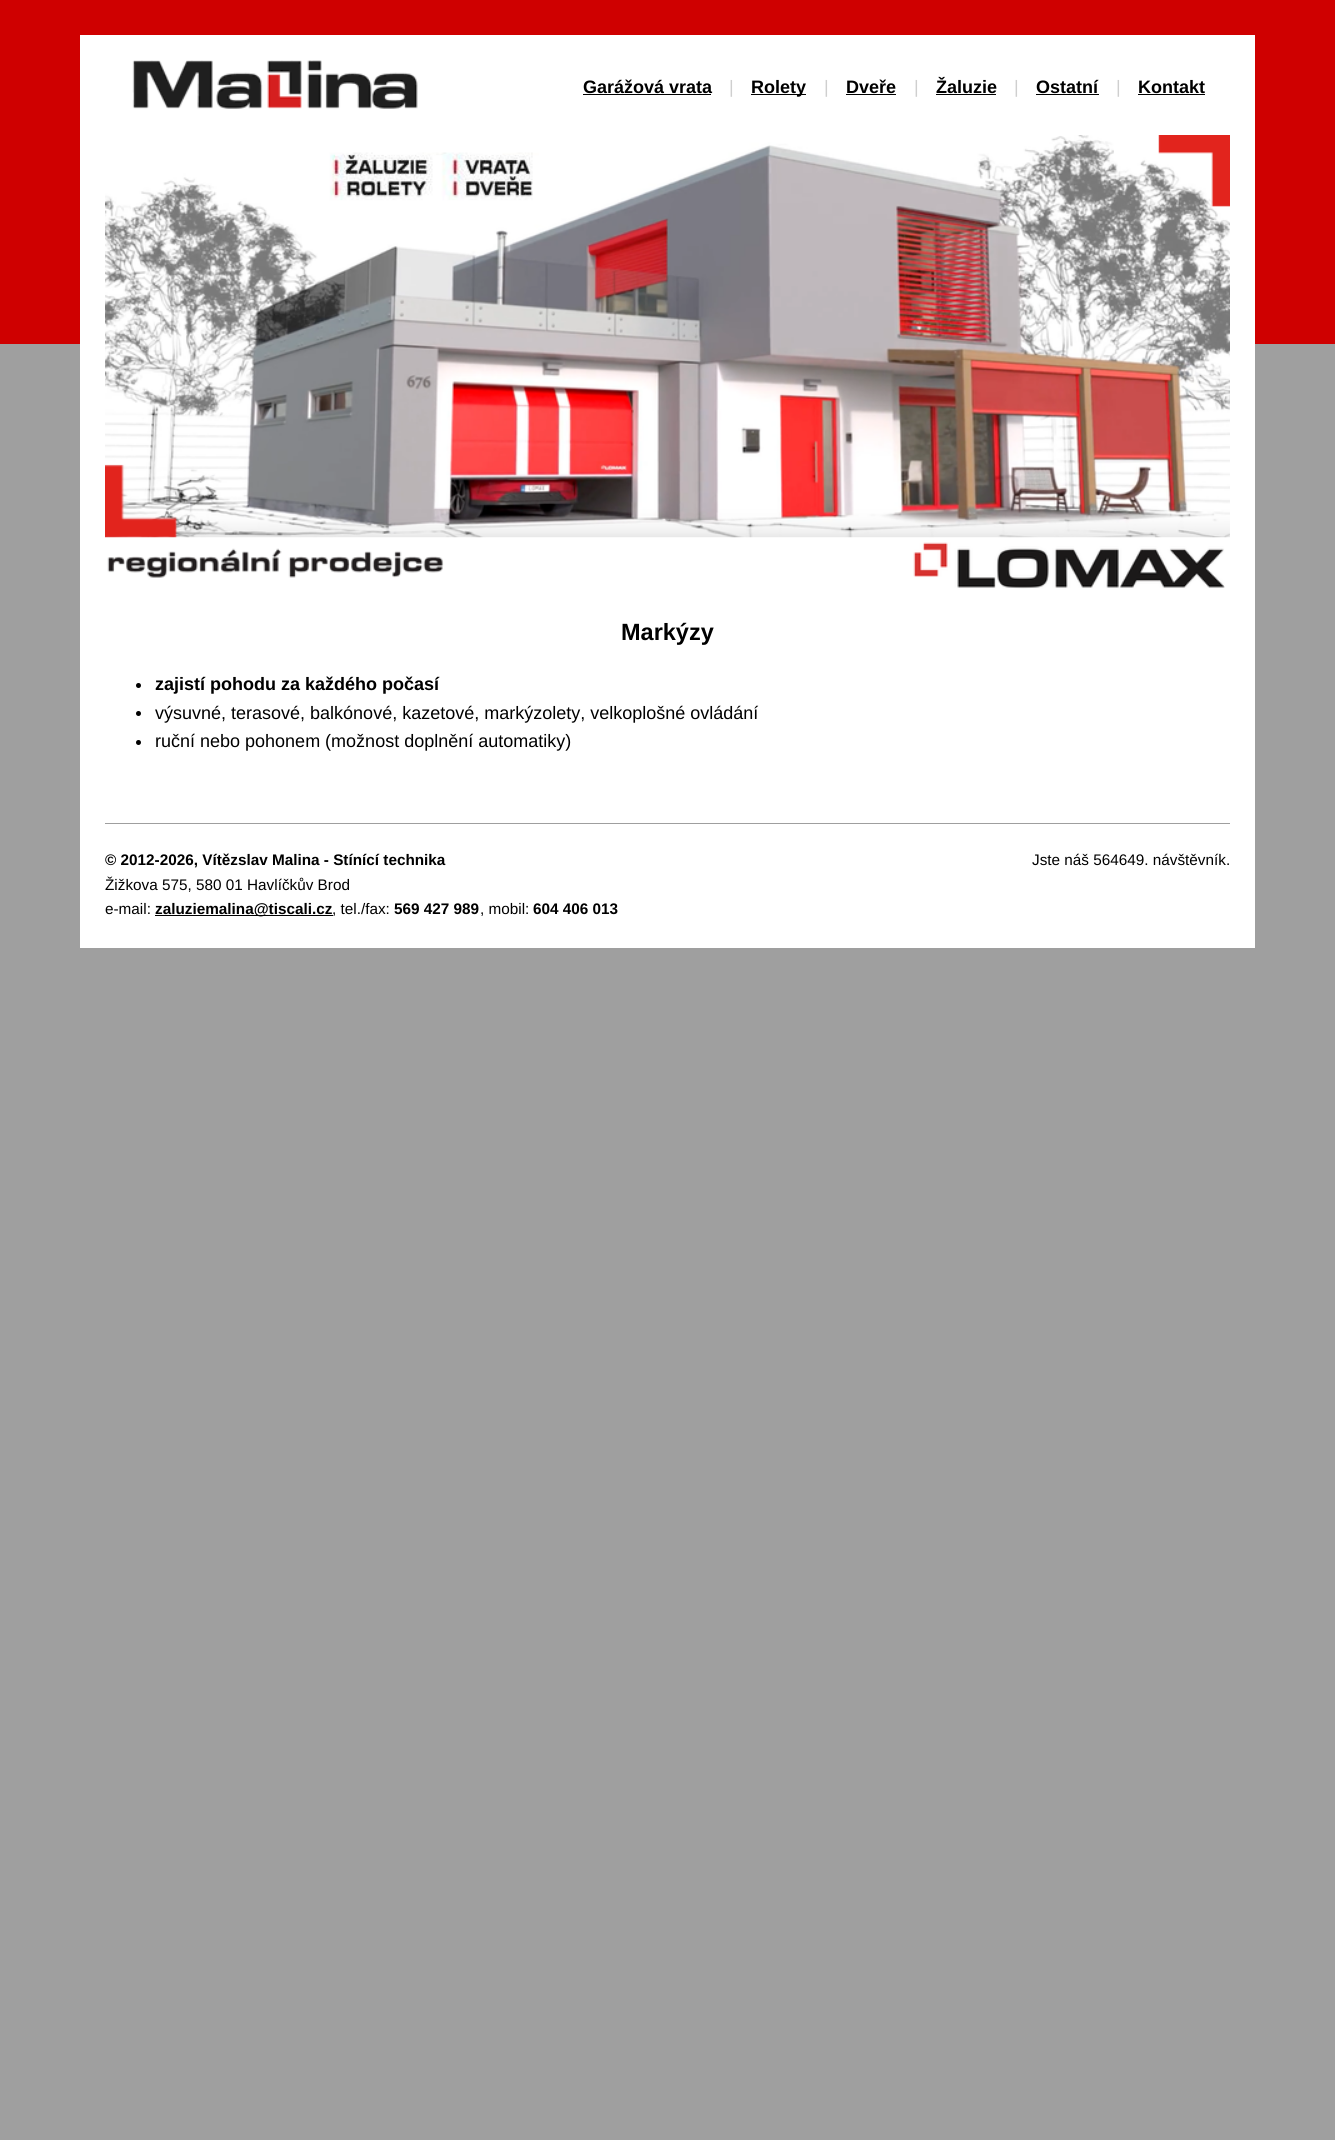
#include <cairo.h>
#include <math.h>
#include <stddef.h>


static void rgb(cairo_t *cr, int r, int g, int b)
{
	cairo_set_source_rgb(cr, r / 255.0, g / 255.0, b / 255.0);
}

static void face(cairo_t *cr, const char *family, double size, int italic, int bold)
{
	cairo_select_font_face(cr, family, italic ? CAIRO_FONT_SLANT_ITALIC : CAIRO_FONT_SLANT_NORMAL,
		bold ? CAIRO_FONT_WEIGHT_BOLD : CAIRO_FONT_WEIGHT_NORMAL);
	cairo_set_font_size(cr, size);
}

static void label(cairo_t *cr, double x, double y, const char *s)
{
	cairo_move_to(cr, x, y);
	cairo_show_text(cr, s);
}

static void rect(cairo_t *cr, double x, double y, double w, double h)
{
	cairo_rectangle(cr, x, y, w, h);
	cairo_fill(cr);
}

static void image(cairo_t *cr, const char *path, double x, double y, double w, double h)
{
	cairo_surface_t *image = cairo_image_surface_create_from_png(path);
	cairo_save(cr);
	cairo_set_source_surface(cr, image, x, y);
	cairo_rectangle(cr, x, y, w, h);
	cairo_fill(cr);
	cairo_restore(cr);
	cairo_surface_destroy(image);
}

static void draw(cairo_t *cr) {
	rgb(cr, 159, 159, 159);
	cairo_paint(cr);
	rgb(cr, 207, 0, 0);
	rect(cr, 0, 0, 1335, 344);
	rgb(cr, 255, 255, 255);
	rect(cr, 80, 35, 1175, 913);
	image(cr, "image0.png", 132, 60, 286, 49);
	face(cr, "Liberation Sans", 18, 0, 1);
	rgb(cr, 0, 0, 0);
	label(cr, 583, 93, "Garážová vrata");
	rect(cr, 583, 94, 128, 1);
	face(cr, "Liberation Sans", 18, 0, 0);
	rgb(cr, 207, 207, 207);
	label(cr, 729, 93, "|");
	rgb(cr, 0, 0, 0);
	rect(cr, 751, 94, 55, 1);
	face(cr, "Liberation Sans", 18, 0, 1);
	label(cr, 751, 93, "Rolety");
	face(cr, "Liberation Sans", 18, 0, 0);
	rgb(cr, 207, 207, 207);
	label(cr, 824, 93, "|");
	face(cr, "Liberation Sans", 18, 0, 1);
	rgb(cr, 0, 0, 0);
	label(cr, 846, 93, "Dveře");
	rect(cr, 846, 94, 50, 1);
	face(cr, "Liberation Sans", 18, 0, 0);
	rgb(cr, 207, 207, 207);
	label(cr, 914, 93, "|");
	face(cr, "Liberation Sans", 18, 0, 1);
	rgb(cr, 0, 0, 0);
	label(cr, 936, 93, "Žaluzie");
	rect(cr, 936, 94, 60, 1);
	face(cr, "Liberation Sans", 18, 0, 0);
	rgb(cr, 207, 207, 207);
	label(cr, 1014, 93, "|");
	face(cr, "Liberation Sans", 18, 0, 1);
	rgb(cr, 0, 0, 0);
	label(cr, 1036, 93, "Ostatní");
	rect(cr, 1036, 94, 63, 1);
	face(cr, "Liberation Sans", 18, 0, 0);
	rgb(cr, 207, 207, 207);
	label(cr, 1116, 93, "|");
	face(cr, "Liberation Sans", 18, 0, 1);
	rgb(cr, 0, 0, 0);
	label(cr, 1138, 93, "Kontakt");
	rect(cr, 1138, 94, 67, 1);
	image(cr, "image1.png", 105, 135, 1125, 403);
	image(cr, "image2.png", 107, 548, 337, 30);
	image(cr, "image3.png", 913, 542, 312, 47);
	face(cr, "Liberation Sans", 23.5, 0, 1);
	label(cr, 621, 640, "Markýzy");
	cairo_new_path(cr);
	cairo_arc(cr, 138.5, 685.5, 2.5, 0, 2 * M_PI);
	cairo_fill(cr);
	face(cr, "Liberation Sans", 18, 0, 1);
	label(cr, 155, 690, "zajistí pohodu za každého počasí");
	cairo_new_path(cr);
	cairo_arc(cr, 138.5, 713.5, 2.5, 0, 2 * M_PI);
	cairo_fill(cr);
	face(cr, "Liberation Sans", 18, 0, 0);
	label(cr, 155, 719, "výsuvné, terasové, balkónové, kazetové, markýzolety, velkoplošné ovládání");
	cairo_new_path(cr);
	cairo_arc(cr, 138.5, 742.5, 2.5, 0, 2 * M_PI);
	cairo_fill(cr);
	label(cr, 155, 747, "ruční nebo pohonem (možnost doplnění automatiky)");
	rgb(cr, 159, 159, 159);
	rect(cr, 105, 823, 1125, 1);
	face(cr, "Liberation Sans", 15.3, 0, 1);
	rgb(cr, 0, 0, 0);
	label(cr, 105, 865, "© 2012-2026, Vítězslav Malina - Stínící technika");
	face(cr, "Liberation Sans", 15.3, 0, 0);
	label(cr, 105, 890, "Žižkova 575, 580 01 Havlíčkův Brod");
	label(cr, 105, 914, "e-mail:");
	rect(cr, 155, 915, 178, 1);
	face(cr, "Liberation Sans", 15.3, 0, 1);
	label(cr, 155, 914, "zaluziemalina@tiscali.cz");
	face(cr, "Liberation Sans", 15.3, 0, 0);
	label(cr, 332, 914, ", tel./fax:");
	face(cr, "Liberation Sans", 15.3, 0, 1);
	label(cr, 394, 914, "569 427 989");
	face(cr, "Liberation Sans", 15.3, 0, 0);
	label(cr, 480, 914, ", mobil:");
	face(cr, "Liberation Sans", 15.3, 0, 1);
	label(cr, 533, 914, "604 406 013");
	face(cr, "Liberation Sans", 15.3, 0, 0);
	label(cr, 1032, 865, "Jste náš 564649. návštěvník.");
}

int main(void) {
	cairo_surface_t *surface = cairo_image_surface_create(CAIRO_FORMAT_RGB24, 1335, 2140);
	cairo_t *cr = cairo_create(surface);
	cairo_font_options_t *options = cairo_font_options_create();
	cairo_font_options_set_hint_metrics(options, CAIRO_HINT_METRICS_OFF);
	cairo_font_options_set_hint_style(options, CAIRO_HINT_STYLE_NONE);
	cairo_set_font_options(cr, options);
	cairo_set_miter_limit(cr, 4);
	draw(cr);
	cairo_surface_write_to_png(surface, "render.png");
	cairo_font_options_destroy(options);
	cairo_destroy(cr);
	cairo_surface_destroy(surface);
	return 0;
}
